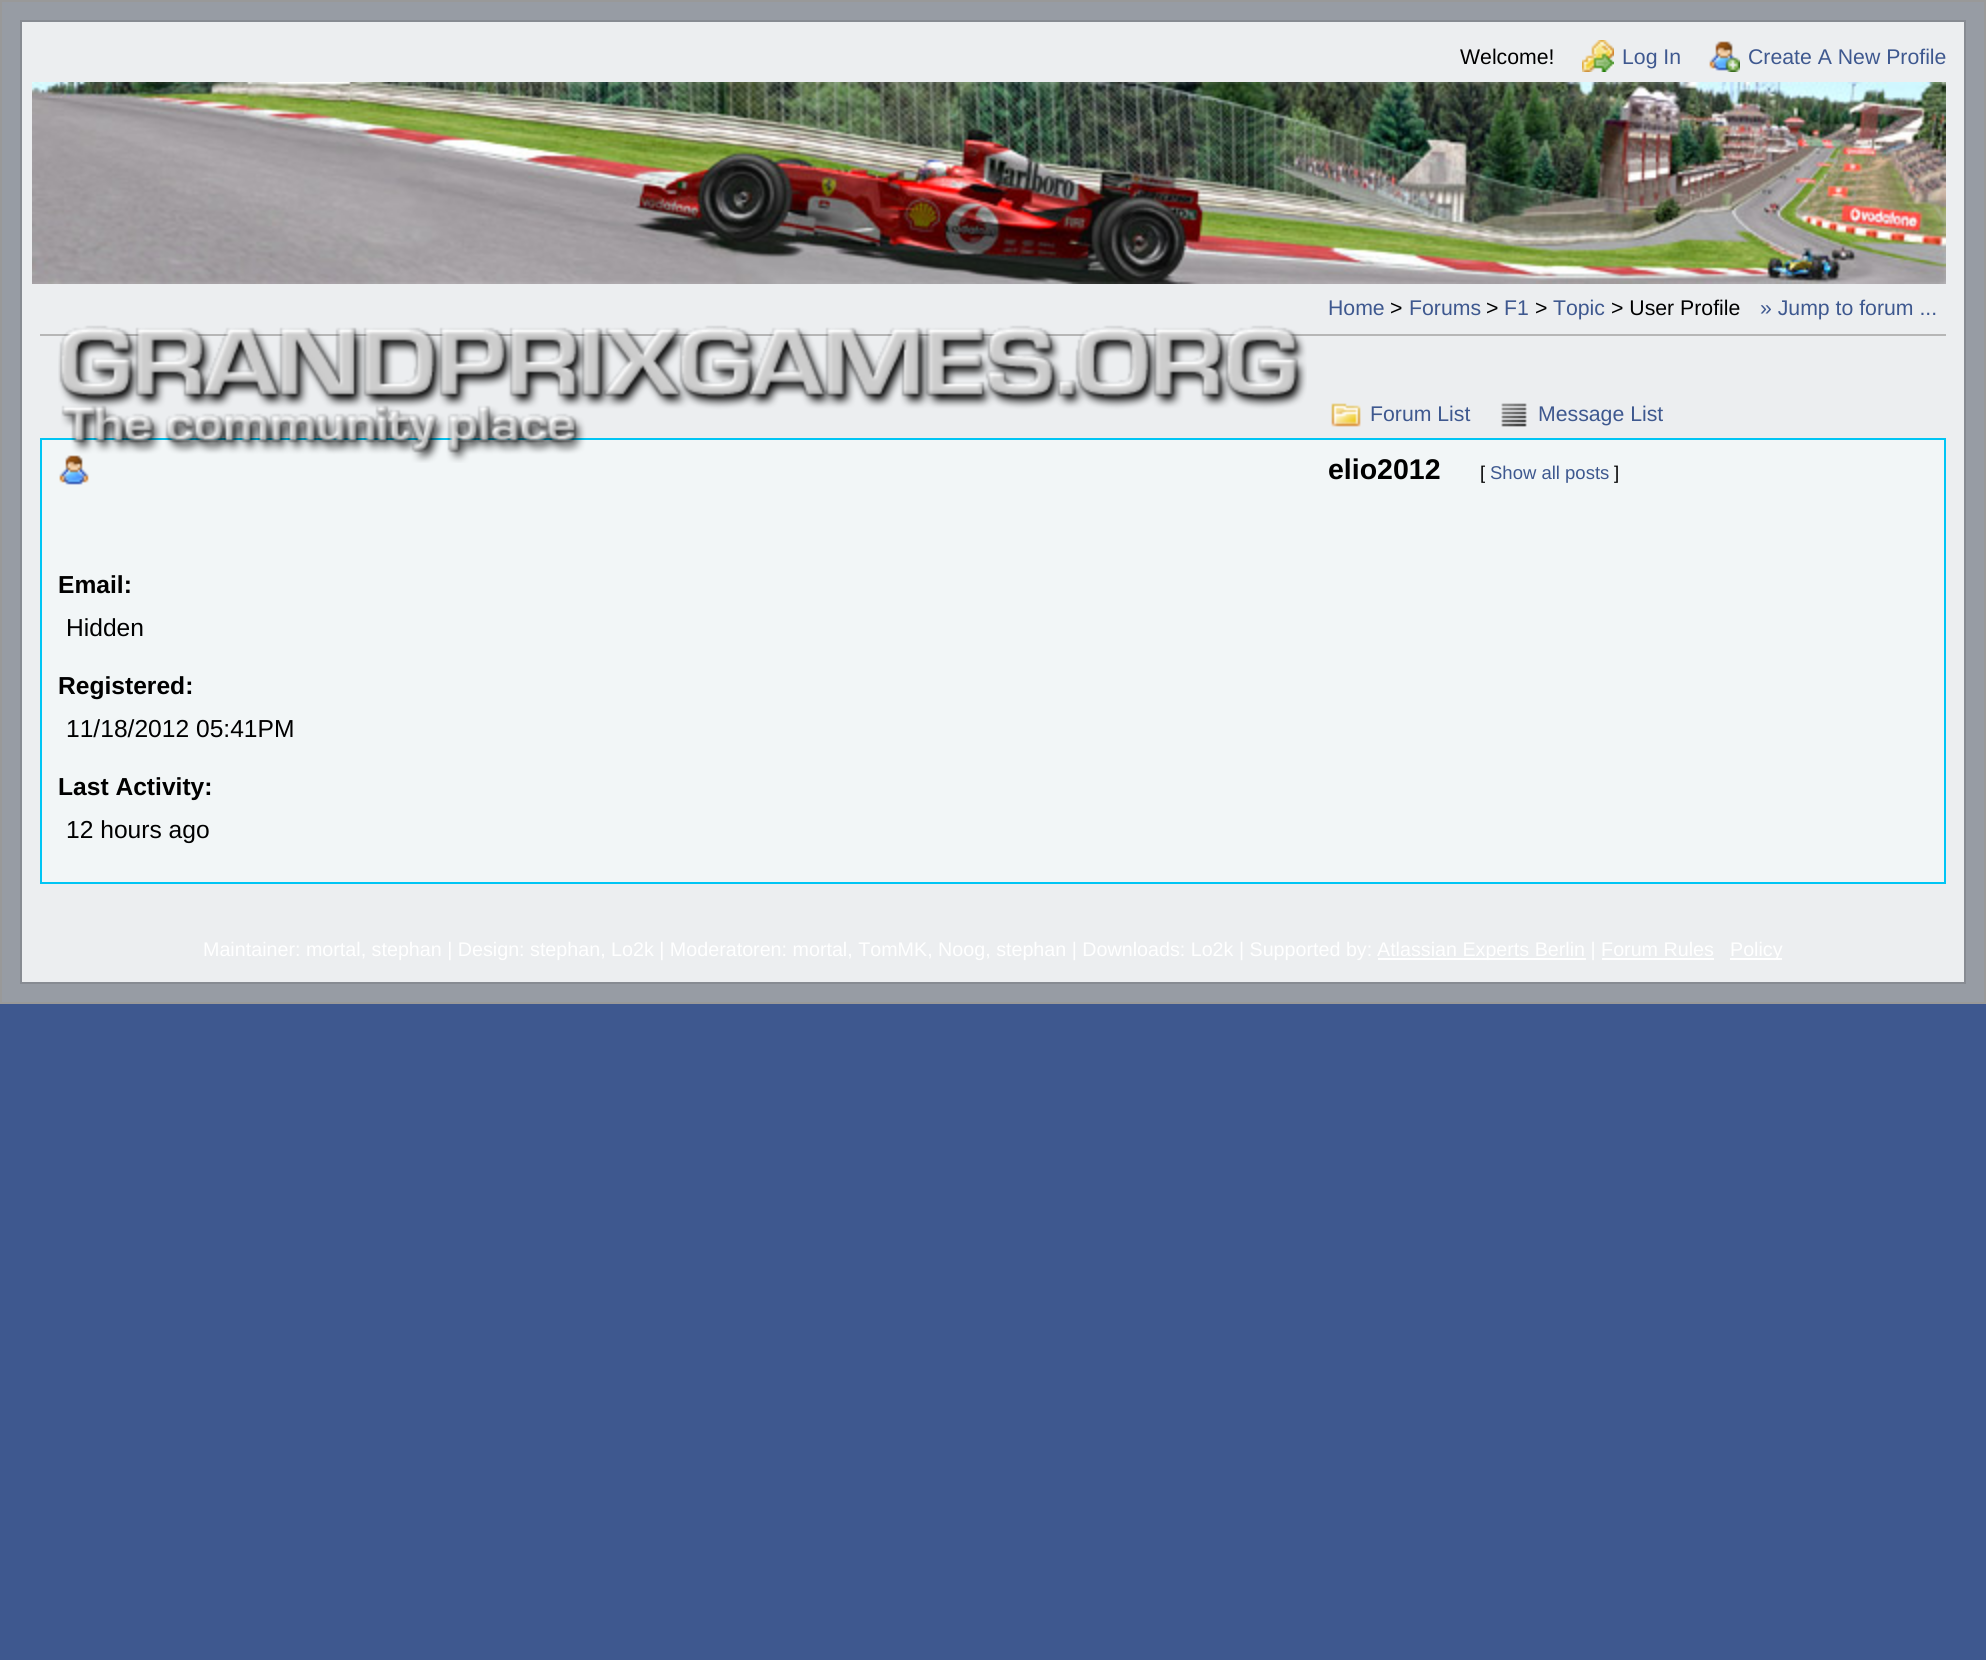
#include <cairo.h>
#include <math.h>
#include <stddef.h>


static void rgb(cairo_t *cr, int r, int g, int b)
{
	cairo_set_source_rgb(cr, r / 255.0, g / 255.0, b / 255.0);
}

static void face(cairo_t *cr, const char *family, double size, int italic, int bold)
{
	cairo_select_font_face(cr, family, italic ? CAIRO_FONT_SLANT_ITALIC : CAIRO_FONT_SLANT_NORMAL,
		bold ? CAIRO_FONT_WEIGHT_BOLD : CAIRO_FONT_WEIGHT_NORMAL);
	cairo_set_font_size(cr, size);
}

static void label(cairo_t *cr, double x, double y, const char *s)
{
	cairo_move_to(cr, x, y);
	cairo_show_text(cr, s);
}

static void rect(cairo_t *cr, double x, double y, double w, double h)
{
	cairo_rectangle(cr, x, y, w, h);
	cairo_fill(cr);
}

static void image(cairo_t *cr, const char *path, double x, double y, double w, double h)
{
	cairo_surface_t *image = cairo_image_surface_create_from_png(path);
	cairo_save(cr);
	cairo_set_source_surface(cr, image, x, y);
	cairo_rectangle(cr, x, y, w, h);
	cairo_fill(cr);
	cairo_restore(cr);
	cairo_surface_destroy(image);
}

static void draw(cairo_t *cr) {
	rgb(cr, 62, 88, 143);
	cairo_paint(cr);
	rgb(cr, 151, 156, 164);
	cairo_rectangle(cr, 1, 1, 1984, 1002);
	cairo_fill_preserve(cr);
	rgb(cr, 153, 153, 153);
	cairo_stroke(cr);
	rgb(cr, 236, 238, 240);
	cairo_rectangle(cr, 21, 21, 1944, 962);
	cairo_fill_preserve(cr);
	rgb(cr, 135, 139, 146);
	cairo_stroke(cr);
	face(cr, "Liberation Sans", 21.25, 0, 0);
	rgb(cr, 0, 0, 0);
	label(cr, 1460, 64, "Welcome!");
	image(cr, "image0.png", 1582, 40, 32, 32);
	rgb(cr, 62, 88, 143);
	label(cr, 1622, 64, "Log In");
	image(cr, "image1.png", 1709, 41, 31, 31);
	label(cr, 1748, 64, "Create A New Profile");
	image(cr, "image2.png", 32, 82, 1914, 202);
	rgb(cr, 182, 182, 182);
	rect(cr, 40, 334, 1906, 2);
	rgb(cr, 242, 246, 247);
	cairo_rectangle(cr, 41, 439, 1904, 444);
	cairo_fill_preserve(cr);
	rgb(cr, 0, 197, 244);
	cairo_stroke(cr);
	image(cr, "image6.png", 59, 455, 30, 30);
	image(cr, "image3.png", 58, 325, 1249, 138);
	rgb(cr, 62, 88, 143);
	label(cr, 1328, 315, "Home");
	rgb(cr, 0, 0, 0);
	label(cr, 1390, 315, ">");
	rgb(cr, 62, 88, 143);
	label(cr, 1409, 315, "Forums");
	rgb(cr, 0, 0, 0);
	label(cr, 1486, 315, ">");
	rgb(cr, 62, 88, 143);
	label(cr, 1504, 315, "F1");
	rgb(cr, 0, 0, 0);
	label(cr, 1535, 315, ">");
	rgb(cr, 62, 88, 143);
	label(cr, 1553, 315, "Topic");
	rgb(cr, 0, 0, 0);
	label(cr, 1611, 315, "> User Profile");
	rgb(cr, 62, 88, 143);
	label(cr, 1760, 315, "» Jump to forum ...");
	image(cr, "image4.png", 1331, 403, 30, 24);
	label(cr, 1370, 421, "Forum List");
	image(cr, "image5.png", 1501, 403, 26, 24);
	label(cr, 1538, 421, "Message List");
	face(cr, "Liberation Sans", 28.5, 0, 1);
	rgb(cr, 0, 0, 0);
	label(cr, 1328, 479, "elio2012");
	face(cr, "Liberation Sans", 18.5, 0, 0);
	label(cr, 1480, 479, "[");
	rgb(cr, 62, 88, 143);
	label(cr, 1490, 479, "Show all posts");
	rgb(cr, 0, 0, 0);
	label(cr, 1614, 479, "]");
	face(cr, "Liberation Sans", 24.6, 0, 1);
	label(cr, 58, 593, "Email:");
	face(cr, "Liberation Sans", 24.6, 0, 0);
	label(cr, 66, 636, "Hidden");
	face(cr, "Liberation Sans", 24.6, 0, 1);
	label(cr, 58, 694, "Registered:");
	face(cr, "Liberation Sans", 24.6, 0, 0);
	label(cr, 66, 737, "11/18/2012 05:41PM");
	face(cr, "Liberation Sans", 24.6, 0, 1);
	label(cr, 58, 795, "Last Activity:");
	face(cr, "Liberation Sans", 24.6, 0, 0);
	label(cr, 66, 838, "12 hours ago");
	face(cr, "Liberation Sans", 19.7, 0, 0);
	rgb(cr, 255, 255, 255);
	label(cr, 203, 956, "Maintainer: mortal, stephan | Design: stephan, Lo2k | Moderatoren: mortal, TomMK, Noog, stephan | Downloads: Lo2k | Supported by:");
	rect(cr, 1378, 958, 208, 2);
	label(cr, 1377, 956, "Atlassian Experts Berlin | Forum Rules");
	rect(cr, 1730, 958, 52, 2);
	label(cr, 1730, 956, "Policy");
	rect(cr, 1602, 958, 112, 2);
}

int main(void) {
	cairo_surface_t *surface = cairo_image_surface_create(CAIRO_FORMAT_RGB24, 1986, 1660);
	cairo_t *cr = cairo_create(surface);
	cairo_font_options_t *options = cairo_font_options_create();
	cairo_font_options_set_hint_metrics(options, CAIRO_HINT_METRICS_OFF);
	cairo_font_options_set_hint_style(options, CAIRO_HINT_STYLE_NONE);
	cairo_set_font_options(cr, options);
	cairo_set_miter_limit(cr, 4);
	draw(cr);
	cairo_surface_write_to_png(surface, "render.png");
	cairo_font_options_destroy(options);
	cairo_destroy(cr);
	cairo_surface_destroy(surface);
	return 0;
}
